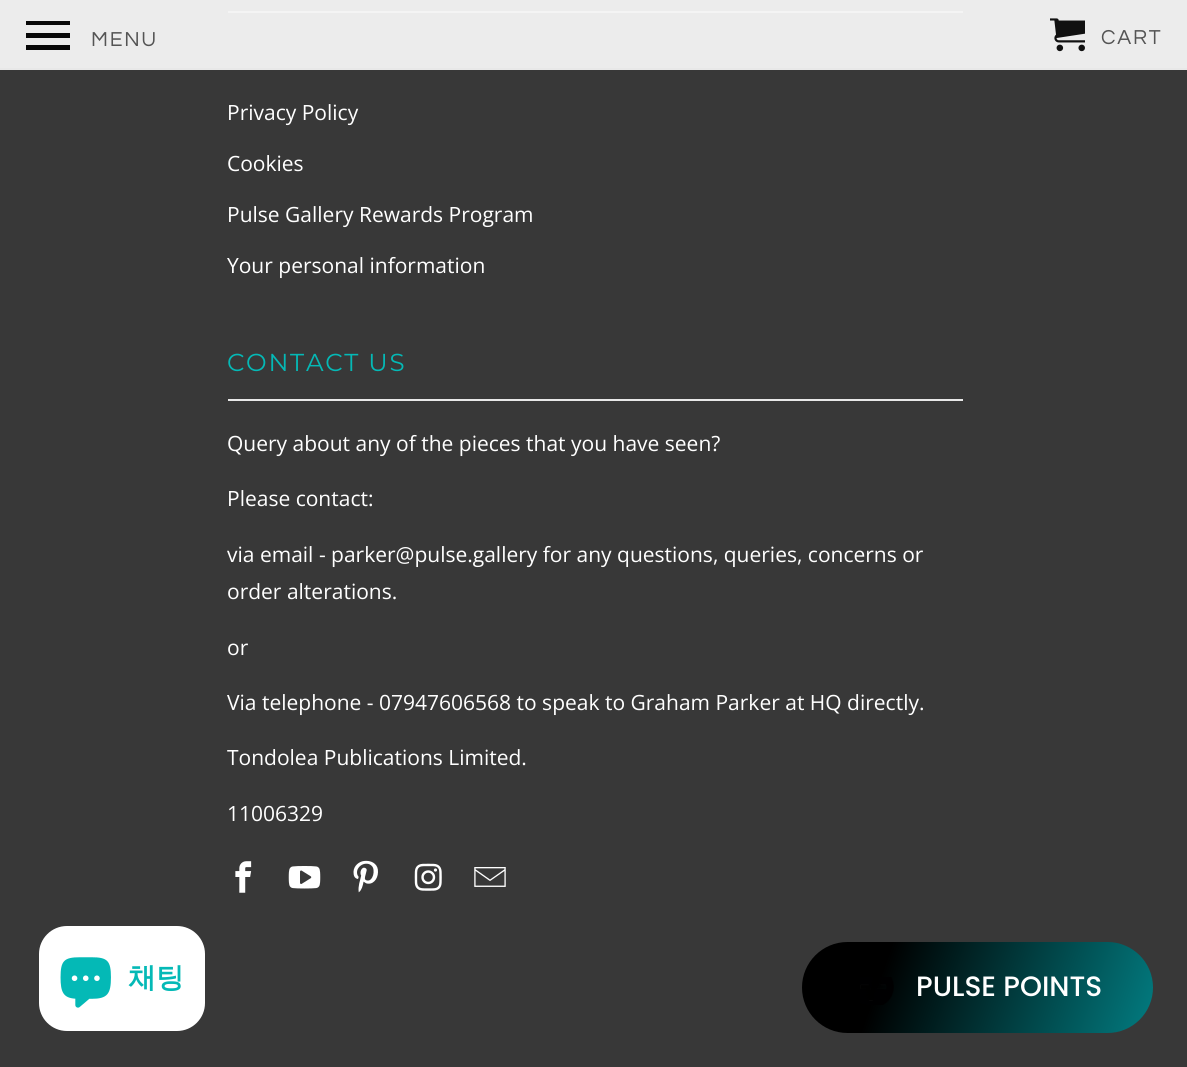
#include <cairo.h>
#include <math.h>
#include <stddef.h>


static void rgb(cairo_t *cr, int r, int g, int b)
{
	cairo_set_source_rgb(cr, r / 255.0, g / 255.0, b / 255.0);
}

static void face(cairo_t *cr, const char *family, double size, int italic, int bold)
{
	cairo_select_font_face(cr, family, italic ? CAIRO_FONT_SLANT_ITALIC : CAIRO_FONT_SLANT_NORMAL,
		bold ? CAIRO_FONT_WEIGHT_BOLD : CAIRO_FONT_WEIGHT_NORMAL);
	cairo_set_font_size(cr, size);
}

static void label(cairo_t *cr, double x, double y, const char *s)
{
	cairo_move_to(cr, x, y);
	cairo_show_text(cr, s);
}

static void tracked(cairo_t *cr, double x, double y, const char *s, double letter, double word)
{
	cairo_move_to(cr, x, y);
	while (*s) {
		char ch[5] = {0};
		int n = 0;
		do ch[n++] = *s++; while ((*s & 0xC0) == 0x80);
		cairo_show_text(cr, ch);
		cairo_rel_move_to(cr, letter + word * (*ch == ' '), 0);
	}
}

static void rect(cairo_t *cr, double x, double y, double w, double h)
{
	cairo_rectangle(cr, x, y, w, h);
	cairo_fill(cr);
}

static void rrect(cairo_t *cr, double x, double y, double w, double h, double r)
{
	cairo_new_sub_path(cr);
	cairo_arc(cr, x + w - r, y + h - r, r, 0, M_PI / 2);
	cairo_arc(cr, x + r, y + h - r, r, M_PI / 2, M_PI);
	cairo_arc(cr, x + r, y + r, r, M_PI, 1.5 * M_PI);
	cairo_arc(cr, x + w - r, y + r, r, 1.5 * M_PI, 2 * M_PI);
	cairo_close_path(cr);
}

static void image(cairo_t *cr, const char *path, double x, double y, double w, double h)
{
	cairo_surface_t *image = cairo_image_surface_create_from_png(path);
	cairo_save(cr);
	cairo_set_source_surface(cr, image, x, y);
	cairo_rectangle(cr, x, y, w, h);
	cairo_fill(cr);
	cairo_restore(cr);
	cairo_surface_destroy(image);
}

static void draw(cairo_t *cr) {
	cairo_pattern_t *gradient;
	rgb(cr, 56, 56, 56);
	cairo_paint(cr);
	rgb(cr, 232, 232, 232);
	rect(cr, 228, 11, 735, 2);
	cairo_set_source_rgba(cr, 0.961, 0.961, 0.961, 0.95);
	rect(cr, 0, 0, 1187, 70);
	cairo_set_source_rgba(cr, 0.91, 0.91, 0.91, 0.95);
	rect(cr, 0, 68, 1187, 2);
	rgb(cr, 8, 8, 8);
	cairo_new_path(cr);
	cairo_move_to(cr, 26, 50);
	cairo_line_to(cr, 70, 50);
	cairo_line_to(cr, 70, 45);
	cairo_line_to(cr, 26, 45);
	cairo_close_path(cr);
	cairo_move_to(cr, 26, 38);
	cairo_line_to(cr, 70, 38);
	cairo_line_to(cr, 70, 33);
	cairo_line_to(cr, 26, 33);
	cairo_close_path(cr);
	cairo_move_to(cr, 26, 21);
	cairo_line_to(cr, 26, 25);
	cairo_line_to(cr, 70, 25);
	cairo_line_to(cr, 70, 21);
	cairo_close_path(cr);
	cairo_fill(cr);
	face(cr, "Questrial", 21, 0, 0);
	rgb(cr, 84, 84, 84);
	tracked(cr, 91, 46, "MENU", 1.75, 0);
	image(cr, "image0.png", 1050, 18, 35, 34);
	tracked(cr, 1101, 44, "CART", 1.75, 0);
	face(cr, "Open Sans", 21, 0, 0);
	rgb(cr, 255, 255, 255);
	label(cr, 227, 120, "Privacy Policy");
	label(cr, 227, 171, "Cookies");
	label(cr, 227, 222, "Pulse Gallery Rewards Program");
	label(cr, 227, 273, "Your personal information");
	rgb(cr, 232, 232, 232);
	rect(cr, 228, 399, 735, 2);
	face(cr, "Montserrat", 24.5, 0, 0);
	rgb(cr, 4, 185, 182);
	tracked(cr, 227, 371, "CONTACT US", 1.75, 0);
	face(cr, "Open Sans", 21, 0, 0);
	rgb(cr, 255, 255, 255);
	label(cr, 227, 451, "Query about any of the pieces that you have seen?");
	label(cr, 227, 506, "Please contact:");
	label(cr, 227, 562, "via email - parker@pulse.gallery for any questions, queries, concerns or");
	label(cr, 227, 599, "order alterations.");
	label(cr, 227, 655, "or");
	label(cr, 227, 710, "Via telephone - 07947606568 to speak to Graham Parker at HQ directly.");
	label(cr, 227, 765, "Tondolea Publications Limited.");
	label(cr, 227, 821, "11006329");
	image(cr, "image1.png", 235, 861, 17, 32);
	image(cr, "image2.png", 288, 866, 33, 23);
	image(cr, "image3.png", 353, 860, 25, 33);
	image(cr, "image4.png", 414, 863, 28, 28);
	image(cr, "image5.png", 474, 867, 32, 20);
	rrect(cr, 39, 926, 166, 105, 28);
	cairo_fill(cr);
	image(cr, "image6.png", 60, 957, 51, 51);
	face(cr, "WenQuanYi Zen Hei", 28, 0, 1);
	rgb(cr, 4, 185, 182);
	label(cr, 128, 987, "채팅");
	gradient = cairo_pattern_create_linear(807, 926, 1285, 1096);
	cairo_pattern_add_color_stop_rgba(gradient, 0.17, 0, 0, 0, 1);
	cairo_pattern_add_color_stop_rgba(gradient, 1, 0.012, 0.741, 0.769, 1);
	cairo_set_source(cr, gradient);
	cairo_pattern_destroy(gradient);
	rrect(cr, 802, 942, 351, 91, 45.5);
	cairo_fill(cr);
	image(cr, "image7.png", 860, 977, 34, 28);
	face(cr, "Poppins Medium", 28, 0, 0);
	rgb(cr, 255, 255, 255);
	label(cr, 916, 996, "PULSE POINTS");
}

int main(void) {
	cairo_surface_t *surface = cairo_image_surface_create(CAIRO_FORMAT_RGB24, 1187, 1067);
	cairo_t *cr = cairo_create(surface);
	cairo_font_options_t *options = cairo_font_options_create();
	cairo_font_options_set_hint_metrics(options, CAIRO_HINT_METRICS_OFF);
	cairo_font_options_set_hint_style(options, CAIRO_HINT_STYLE_NONE);
	cairo_set_font_options(cr, options);
	cairo_set_miter_limit(cr, 4);
	draw(cr);
	cairo_surface_write_to_png(surface, "render.png");
	cairo_font_options_destroy(options);
	cairo_destroy(cr);
	cairo_surface_destroy(surface);
	return 0;
}
